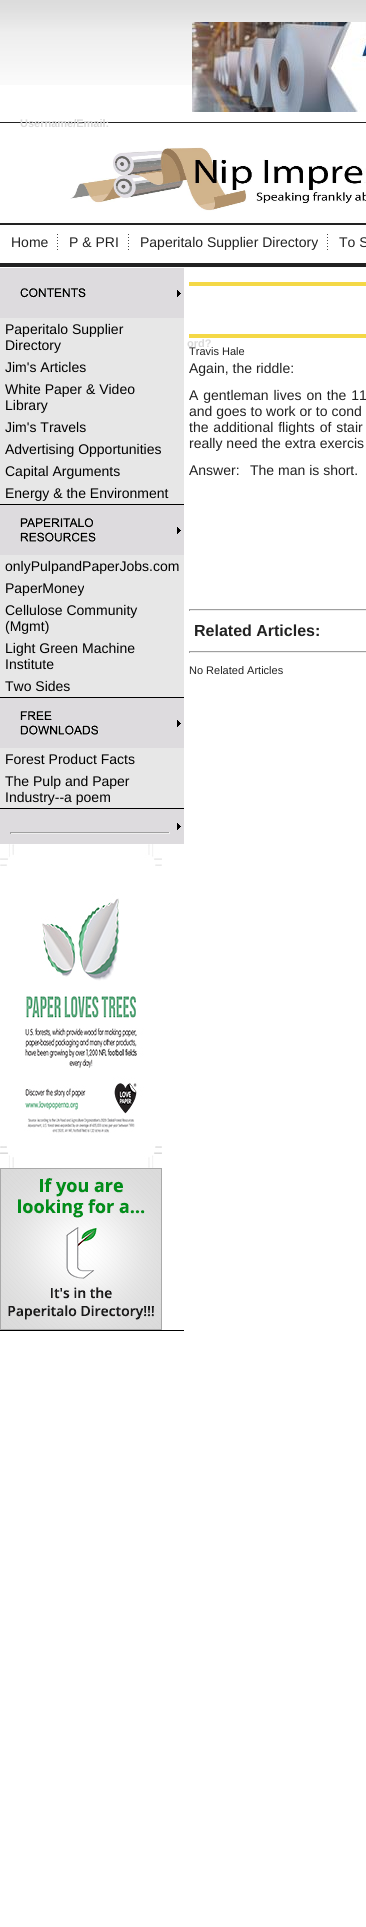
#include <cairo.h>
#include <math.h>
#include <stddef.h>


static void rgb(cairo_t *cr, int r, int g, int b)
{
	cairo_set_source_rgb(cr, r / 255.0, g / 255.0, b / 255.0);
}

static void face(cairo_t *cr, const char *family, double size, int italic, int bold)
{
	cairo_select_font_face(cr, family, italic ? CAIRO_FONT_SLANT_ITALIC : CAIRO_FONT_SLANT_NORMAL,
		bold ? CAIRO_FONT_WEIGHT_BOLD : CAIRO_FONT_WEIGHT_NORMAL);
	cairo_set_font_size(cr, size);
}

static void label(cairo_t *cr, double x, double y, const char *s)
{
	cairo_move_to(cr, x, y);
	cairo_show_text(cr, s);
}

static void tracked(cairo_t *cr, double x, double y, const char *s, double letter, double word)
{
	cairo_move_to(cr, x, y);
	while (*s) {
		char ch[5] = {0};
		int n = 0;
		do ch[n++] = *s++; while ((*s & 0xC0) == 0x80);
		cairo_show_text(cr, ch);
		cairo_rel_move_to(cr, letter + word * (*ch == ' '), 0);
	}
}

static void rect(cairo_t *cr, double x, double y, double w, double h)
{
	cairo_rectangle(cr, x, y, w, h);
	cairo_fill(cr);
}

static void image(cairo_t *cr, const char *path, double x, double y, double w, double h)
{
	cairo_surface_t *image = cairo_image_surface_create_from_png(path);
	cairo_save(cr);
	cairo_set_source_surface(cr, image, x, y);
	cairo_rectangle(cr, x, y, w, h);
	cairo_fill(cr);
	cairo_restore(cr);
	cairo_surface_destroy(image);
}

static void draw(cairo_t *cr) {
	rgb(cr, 255, 255, 255);
	cairo_paint(cr);
	rgb(cr, 34, 34, 34);
	rect(cr, 0, 122, 366, 1);
	face(cr, "Liberation Sans", 11, 0, 1);
	rgb(cr, 218, 218, 218);
	label(cr, 20, 127, "Username/Email:");
	label(cr, 187, 347, "ord?");
	image(cr, "image0.png", 0, 0, 366, 85);
	image(cr, "image1.png", 192, 22, 174, 90);
	rgb(cr, 34, 34, 34);
	rect(cr, 0, 223, 366, 2);
	image(cr, "image2.png", 70, 147, 296, 64);
	rect(cr, 0, 263, 366, 4);
	image(cr, "image3.png", 57, 234, 1, 16);
	face(cr, "Liberation Sans", 14, 0, 0);
	label(cr, 11, 247, "Home");
	image(cr, "image3.png", 128, 234, 1, 16);
	label(cr, 69, 247, "P & PRI");
	image(cr, "image3.png", 327, 234, 1, 16);
	label(cr, 140, 247, "Paperitalo Supplier Directory");
	label(cr, 339, 247, "To S");
	rgb(cr, 221, 219, 222);
	rect(cr, 0, 268, 184, 50);
	image(cr, "image4.png", 177, 290, 4, 7);
	image(cr, "image5.png", 20, 288, 66, 10);
	rgb(cr, 0, 0, 0);
	rect(cr, 0, 504, 184, 1);
	rgb(cr, 231, 231, 231);
	rect(cr, 0, 318, 184, 186);
	rgb(cr, 0, 0, 0);
	label(cr, 5, 334, "Paperitalo Supplier");
	label(cr, 5, 350, "Directory");
	label(cr, 5, 372, "Jim's Articles");
	label(cr, 5, 394, "White Paper & Video");
	label(cr, 5, 410, "Library");
	label(cr, 5, 432, "Jim's Travels");
	label(cr, 5, 454, "Advertising Opportunities");
	label(cr, 5, 476, "Capital Arguments");
	label(cr, 5, 498, "Energy & the Environment");
	rgb(cr, 221, 219, 222);
	rect(cr, 0, 505, 184, 50);
	image(cr, "image4.png", 177, 527, 4, 7);
	image(cr, "image6.png", 20, 518, 76, 24);
	rgb(cr, 0, 0, 0);
	rect(cr, 0, 697, 184, 1);
	rgb(cr, 231, 231, 231);
	rect(cr, 0, 555, 184, 142);
	rgb(cr, 0, 0, 0);
	label(cr, 5, 571, "onlyPulpandPaperJobs.com");
	label(cr, 5, 593, "PaperMoney");
	label(cr, 5, 615, "Cellulose Community");
	label(cr, 5, 631, "(Mgmt)");
	label(cr, 5, 653, "Light Green Machine");
	label(cr, 5, 669, "Institute");
	label(cr, 5, 691, "Two Sides");
	rgb(cr, 221, 219, 222);
	rect(cr, 0, 698, 184, 50);
	image(cr, "image4.png", 177, 720, 4, 7);
	image(cr, "image7.png", 20, 711, 79, 24);
	rgb(cr, 0, 0, 0);
	rect(cr, 0, 808, 184, 1);
	rgb(cr, 231, 231, 231);
	rect(cr, 0, 748, 184, 60);
	rgb(cr, 0, 0, 0);
	label(cr, 5, 764, "Forest Product Facts");
	label(cr, 5, 786, "The Pulp and Paper");
	label(cr, 5, 802, "Industry--a poem");
	rgb(cr, 221, 219, 222);
	rect(cr, 0, 809, 184, 35);
	image(cr, "image4.png", 177, 823, 4, 7);
	rgb(cr, 159, 159, 159);
	rect(cr, 10, 832, 160, 1);
	rgb(cr, 238, 238, 238);
	rect(cr, 169, 832, 1, 2);
	rect(cr, 10, 833, 160, 1);
	rgb(cr, 159, 159, 159);
	rect(cr, 10, 832, 1, 2);
	rgb(cr, 0, 0, 0);
	rect(cr, 0, 1330, 184, 1);
	image(cr, "image8.png", 0, 844, 162, 324);
	image(cr, "image9.png", 0, 1168, 162, 162);
	rgb(cr, 244, 216, 70);
	rect(cr, 189, 282, 177, 4);
	rect(cr, 189, 334, 177, 4);
	face(cr, "Liberation Sans", 11, 0, 0);
	rgb(cr, 34, 34, 34);
	label(cr, 189, 355, "Travis Hale");
	face(cr, "Liberation Sans", 14, 0, 0);
	label(cr, 189, 373, "Again, the riddle:");
	tracked(cr, 189, 400, "A gentleman lives on the 11", 0, 1);
	label(cr, 189, 416, "and goes to work or to cond");
	tracked(cr, 189, 432, "the additional flights of stair", 0, 1);
	label(cr, 189, 448, "really need the extra exercis");
	label(cr, 189, 475, "Answer:");
	label(cr, 250, 475, "The man is short.");
	rgb(cr, 159, 159, 159);
	rect(cr, 189, 609, 177, 1);
	rgb(cr, 238, 238, 238);
	rect(cr, 189, 610, 177, 1);
	rgb(cr, 159, 159, 159);
	rect(cr, 189, 609, 1, 2);
	face(cr, "Liberation Sans", 16, 0, 1);
	rgb(cr, 34, 34, 34);
	label(cr, 194, 636, "Related Articles:");
	rgb(cr, 159, 159, 159);
	rect(cr, 189, 651, 177, 1);
	rgb(cr, 238, 238, 238);
	rect(cr, 189, 652, 177, 1);
	rgb(cr, 159, 159, 159);
	rect(cr, 189, 651, 1, 2);
	face(cr, "Liberation Sans", 11, 0, 0);
	rgb(cr, 34, 34, 34);
	label(cr, 189, 674, "No Related Articles");
}

int main(void) {
	cairo_surface_t *surface = cairo_image_surface_create(CAIRO_FORMAT_RGB24, 366, 1927);
	cairo_t *cr = cairo_create(surface);
	cairo_font_options_t *options = cairo_font_options_create();
	cairo_font_options_set_hint_metrics(options, CAIRO_HINT_METRICS_OFF);
	cairo_font_options_set_hint_style(options, CAIRO_HINT_STYLE_NONE);
	cairo_set_font_options(cr, options);
	cairo_set_miter_limit(cr, 4);
	draw(cr);
	cairo_surface_write_to_png(surface, "render.png");
	cairo_font_options_destroy(options);
	cairo_destroy(cr);
	cairo_surface_destroy(surface);
	return 0;
}
